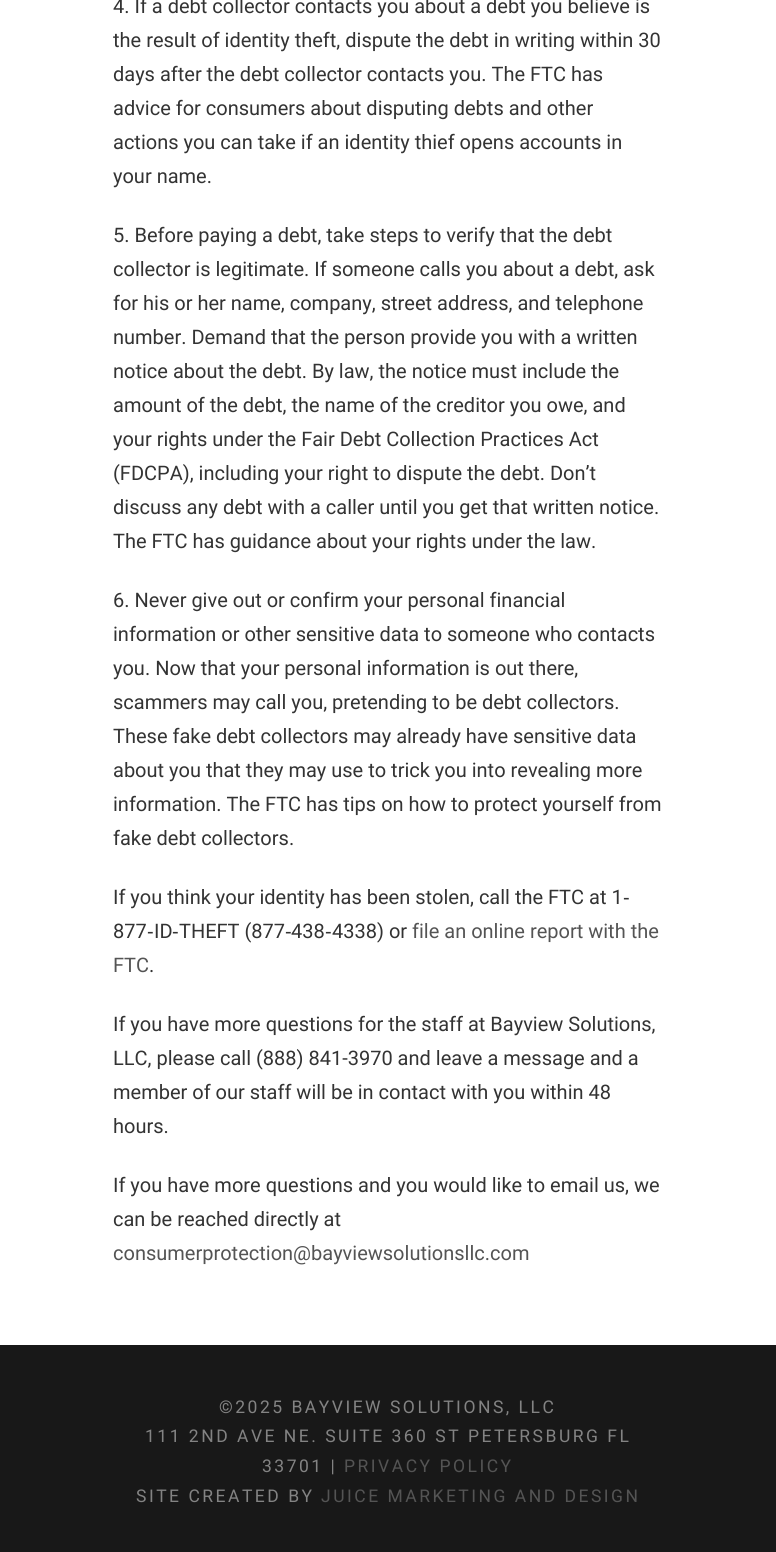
#include <cairo.h>
#include <math.h>
#include <stddef.h>


static void rgb(cairo_t *cr, int r, int g, int b)
{
	cairo_set_source_rgb(cr, r / 255.0, g / 255.0, b / 255.0);
}

static void face(cairo_t *cr, const char *family, double size, int italic, int bold)
{
	cairo_select_font_face(cr, family, italic ? CAIRO_FONT_SLANT_ITALIC : CAIRO_FONT_SLANT_NORMAL,
		bold ? CAIRO_FONT_WEIGHT_BOLD : CAIRO_FONT_WEIGHT_NORMAL);
	cairo_set_font_size(cr, size);
}

static void label(cairo_t *cr, double x, double y, const char *s)
{
	cairo_move_to(cr, x, y);
	cairo_show_text(cr, s);
}

static void tracked(cairo_t *cr, double x, double y, const char *s, double letter, double word)
{
	cairo_move_to(cr, x, y);
	while (*s) {
		char ch[5] = {0};
		int n = 0;
		do ch[n++] = *s++; while ((*s & 0xC0) == 0x80);
		cairo_show_text(cr, ch);
		cairo_rel_move_to(cr, letter + word * (*ch == ' '), 0);
	}
}

static void rect(cairo_t *cr, double x, double y, double w, double h)
{
	cairo_rectangle(cr, x, y, w, h);
	cairo_fill(cr);
}

static void draw(cairo_t *cr) {
	rgb(cr, 255, 255, 255);
	cairo_paint(cr);
	face(cr, "Roboto", 20, 0, 0);
	rgb(cr, 51, 51, 51);
	label(cr, 113, 13, "4. If a debt collector contacts you about a debt you believe is");
	label(cr, 113, 47, "the result of identity theft, dispute the debt in writing within 30");
	label(cr, 113, 81, "days after the debt collector contacts you. The FTC has");
	label(cr, 113, 115, "advice for consumers about disputing debts and other");
	label(cr, 113, 149, "actions you can take if an identity thief opens accounts in");
	label(cr, 113, 183, "your name.");
	label(cr, 113, 242, "5. Before paying a debt, take steps to verify that the debt");
	label(cr, 113, 276, "collector is legitimate. If someone calls you about a debt, ask");
	label(cr, 113, 310, "for his or her name, company, street address, and telephone");
	label(cr, 113, 344, "number. Demand that the person provide you with a written");
	label(cr, 113, 378, "notice about the debt. By law, the notice must include the");
	label(cr, 113, 412, "amount of the debt, the name of the creditor you owe, and");
	label(cr, 113, 446, "your rights under the Fair Debt Collection Practices Act");
	label(cr, 113, 480, "(FDCPA), including your right to dispute the debt. Don’t");
	label(cr, 113, 514, "discuss any debt with a caller until you get that written notice.");
	label(cr, 113, 548, "The FTC has guidance about your rights under the law.");
	label(cr, 113, 607, "6. Never give out or confirm your personal financial");
	label(cr, 113, 641, "information or other sensitive data to someone who contacts");
	label(cr, 113, 675, "you. Now that your personal information is out there,");
	label(cr, 113, 709, "scammers may call you, pretending to be debt collectors.");
	label(cr, 113, 743, "These fake debt collectors may already have sensitive data");
	label(cr, 113, 777, "about you that they may use to trick you into revealing more");
	label(cr, 113, 811, "information. The FTC has tips on how to protect yourself from");
	label(cr, 113, 845, "fake debt collectors.");
	label(cr, 113, 904, "If you think your identity has been stolen, call the FTC at 1");
	face(cr, "Liberation Sans", 20, 0, 0);
	label(cr, 623, 904, "‐");
	face(cr, "Roboto", 20, 0, 0);
	label(cr, 113, 938, "877");
	face(cr, "Liberation Sans", 20, 0, 0);
	label(cr, 147, 938, "‐");
	face(cr, "Roboto", 20, 0, 0);
	label(cr, 154, 938, "ID");
	face(cr, "Liberation Sans", 20, 0, 0);
	label(cr, 172, 938, "‐");
	face(cr, "Roboto", 20, 0, 0);
	label(cr, 179, 938, "THEFT (877");
	face(cr, "Liberation Sans", 20, 0, 0);
	label(cr, 285, 938, "‐");
	face(cr, "Roboto", 20, 0, 0);
	label(cr, 291, 938, "438");
	face(cr, "Liberation Sans", 20, 0, 0);
	label(cr, 325, 938, "‐");
	face(cr, "Roboto", 20, 0, 0);
	label(cr, 332, 938, "4338) or");
	rgb(cr, 84, 84, 84);
	label(cr, 412, 938, "file an online report with the");
	label(cr, 113, 972, "FTC");
	rgb(cr, 51, 51, 51);
	label(cr, 149, 972, ".");
	label(cr, 113, 1031, "If you have more questions for the staff at Bayview Solutions,");
	label(cr, 113, 1065, "LLC, please call (888) 841-3970 and leave a message and a");
	label(cr, 113, 1099, "member of our staff will be in contact with you within 48");
	label(cr, 113, 1133, "hours.");
	label(cr, 113, 1192, "If you have more questions and you would like to email us, we");
	label(cr, 113, 1226, "can be reached directly at");
	rgb(cr, 84, 84, 84);
	label(cr, 113, 1260, "consumerprotection@bayviewsolutionsllc.com");
	rgb(cr, 24, 24, 24);
	rect(cr, 0, 1345, 776, 207);
	face(cr, "Roboto", 17.5, 0, 0);
	rgb(cr, 131, 131, 131);
	tracked(cr, 219, 1413, "©2025 BAYVIEW SOLUTIONS, LLC", 2.5, 0);
	tracked(cr, 145, 1442, "111 2ND AVE NE. SUITE 360 ST PETERSBURG FL", 2.5, 0);
	tracked(cr, 262, 1472, "33701 |", 2.5, 0);
	rgb(cr, 84, 84, 84);
	tracked(cr, 344, 1472, "PRIVACY POLICY", 2.5, 0);
	rgb(cr, 131, 131, 131);
	tracked(cr, 136, 1502, "SITE CREATED BY", 2.5, 0);
	rgb(cr, 84, 84, 84);
	tracked(cr, 321, 1502, "JUICE MARKETING AND DESIGN", 2.5, 0);
}

int main(void) {
	cairo_surface_t *surface = cairo_image_surface_create(CAIRO_FORMAT_RGB24, 776, 1552);
	cairo_t *cr = cairo_create(surface);
	cairo_font_options_t *options = cairo_font_options_create();
	cairo_font_options_set_hint_metrics(options, CAIRO_HINT_METRICS_OFF);
	cairo_font_options_set_hint_style(options, CAIRO_HINT_STYLE_NONE);
	cairo_set_font_options(cr, options);
	cairo_set_miter_limit(cr, 4);
	draw(cr);
	cairo_surface_write_to_png(surface, "render.png");
	cairo_font_options_destroy(options);
	cairo_destroy(cr);
	cairo_surface_destroy(surface);
	return 0;
}
